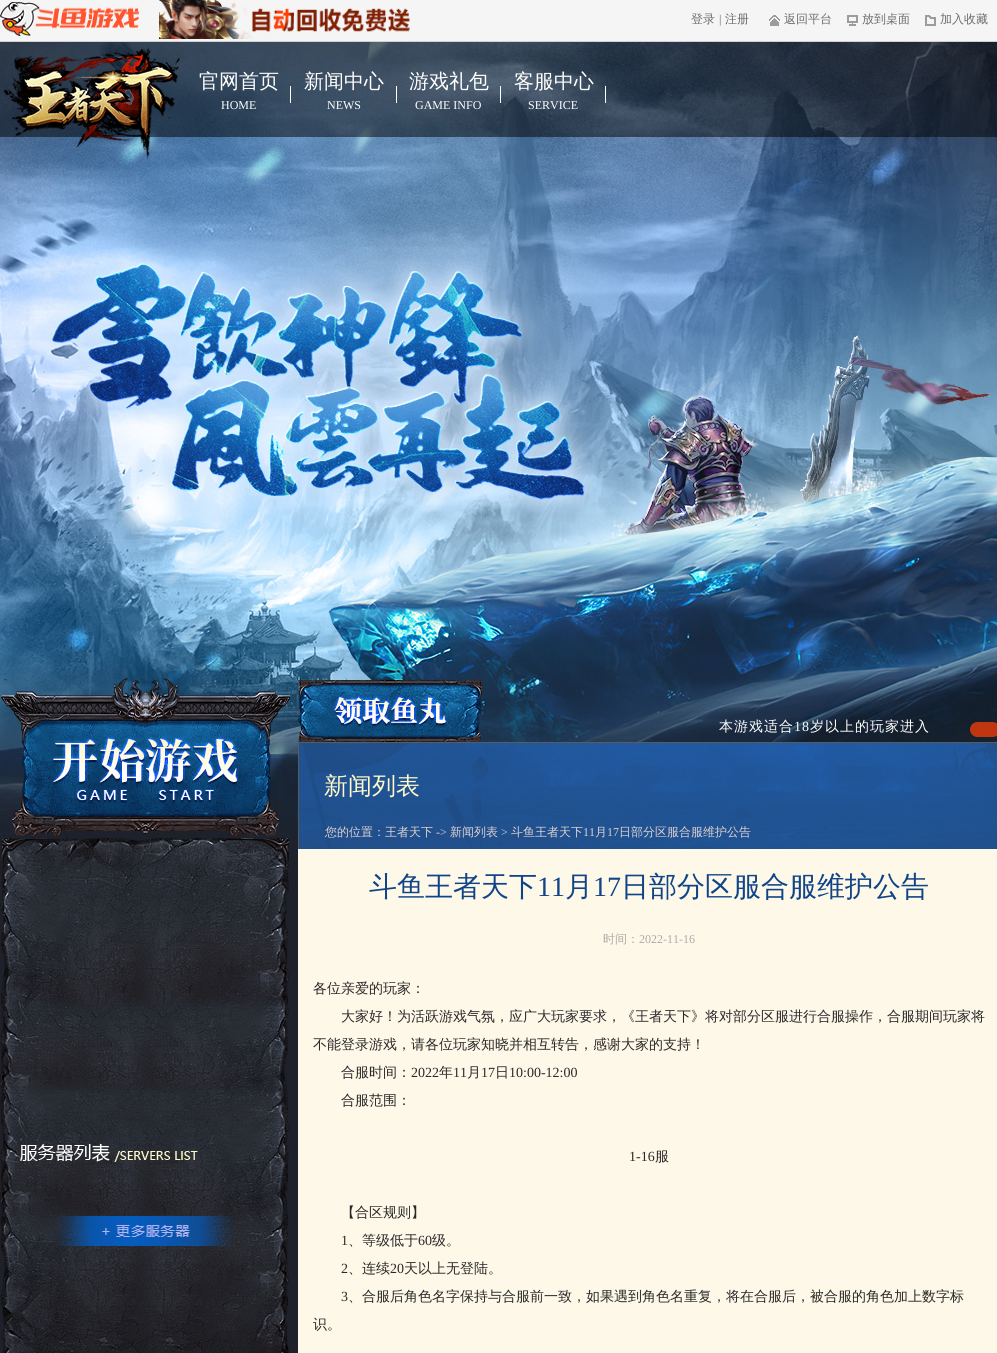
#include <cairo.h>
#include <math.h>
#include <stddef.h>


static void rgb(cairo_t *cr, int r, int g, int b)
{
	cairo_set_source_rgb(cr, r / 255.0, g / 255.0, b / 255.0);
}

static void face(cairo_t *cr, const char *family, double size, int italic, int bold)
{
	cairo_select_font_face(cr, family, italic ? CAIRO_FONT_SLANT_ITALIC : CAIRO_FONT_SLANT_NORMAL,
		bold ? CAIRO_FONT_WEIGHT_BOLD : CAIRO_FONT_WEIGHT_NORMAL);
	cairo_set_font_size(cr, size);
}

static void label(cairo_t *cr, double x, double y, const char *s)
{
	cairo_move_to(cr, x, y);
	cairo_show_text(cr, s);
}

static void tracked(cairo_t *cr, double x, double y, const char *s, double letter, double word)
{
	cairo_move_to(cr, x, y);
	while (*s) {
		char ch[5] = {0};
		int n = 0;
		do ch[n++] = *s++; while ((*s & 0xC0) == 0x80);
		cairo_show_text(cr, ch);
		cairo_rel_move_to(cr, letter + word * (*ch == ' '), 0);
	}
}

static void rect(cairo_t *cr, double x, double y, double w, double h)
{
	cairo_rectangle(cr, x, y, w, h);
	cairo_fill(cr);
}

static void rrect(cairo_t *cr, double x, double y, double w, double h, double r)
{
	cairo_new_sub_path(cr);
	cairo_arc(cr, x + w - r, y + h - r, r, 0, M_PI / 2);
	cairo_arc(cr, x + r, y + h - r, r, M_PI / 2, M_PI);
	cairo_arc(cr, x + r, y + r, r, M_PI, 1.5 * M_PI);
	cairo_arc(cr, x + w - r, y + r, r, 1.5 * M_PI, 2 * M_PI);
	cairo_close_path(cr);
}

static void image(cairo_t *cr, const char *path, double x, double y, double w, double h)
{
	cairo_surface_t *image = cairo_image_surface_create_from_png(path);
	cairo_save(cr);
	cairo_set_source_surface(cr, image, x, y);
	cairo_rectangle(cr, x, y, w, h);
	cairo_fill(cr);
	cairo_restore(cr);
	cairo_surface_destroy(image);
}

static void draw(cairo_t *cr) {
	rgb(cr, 30, 33, 42);
	cairo_paint(cr);
	rgb(cr, 245, 245, 245);
	rect(cr, 0, 0, 997, 41);
	rgb(cr, 209, 209, 209);
	rect(cr, 0, 41, 997, 1);
	image(cr, "image0.png", 0, 2, 139, 34);
	image(cr, "image1.png", 159, 0, 251, 39);
	face(cr, "WenQuanYi Zen Hei Medium", 12, 0, 0);
	rgb(cr, 108, 108, 108);
	label(cr, 691, 23, "登录");
	face(cr, "Liberation Serif", 12, 0, 0);
	label(cr, 719, 23, "|");
	face(cr, "WenQuanYi Zen Hei Medium", 12, 0, 0);
	label(cr, 725, 23, "注册");
	image(cr, "image2.png", 769, 15, 11, 11);
	label(cr, 784, 23, "返回平台");
	image(cr, "image3.png", 847, 15, 11, 11);
	label(cr, 862, 23, "放到桌面");
	image(cr, "image4.png", 925, 15, 11, 11);
	label(cr, 940, 23, "加入收藏");
	image(cr, "image5.png", 0, 42, 997, 819);
	rgb(cr, 191, 54, 17);
	rrect(cr, 970, 722, 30, 15, 7.5);
	cairo_fill(cr);
	image(cr, "image6.png", 3, 45, 177, 114);
	image(cr, "image7.png", 290, 86, 316, 17);
	face(cr, "WenQuanYi Zen Hei Medium", 20, 0, 0);
	rgb(cr, 255, 255, 255);
	label(cr, 199, 88, "官网首页");
	face(cr, "Liberation Serif", 12, 0, 0);
	label(cr, 221, 109, "HOME");
	face(cr, "WenQuanYi Zen Hei Medium", 20, 0, 0);
	label(cr, 304, 88, "新闻中心");
	face(cr, "Liberation Serif", 12, 0, 0);
	label(cr, 327, 109, "NEWS");
	face(cr, "WenQuanYi Zen Hei Medium", 20, 0, 0);
	label(cr, 409, 88, "游戏礼包");
	face(cr, "Liberation Serif", 12, 0, 0);
	label(cr, 415, 109, "GAME INFO");
	face(cr, "WenQuanYi Zen Hei Medium", 20, 0, 0);
	label(cr, 514, 88, "客服中心");
	face(cr, "Liberation Serif", 12, 0, 0);
	label(cr, 528, 109, "SERVICE");
	image(cr, "image8.png", 298, 680, 184, 62);
	face(cr, "WenQuanYi Zen Hei Medium", 14, 0, 0);
	tracked(cr, 719, 731, "本游戏适合", 1, 0);
	face(cr, "Liberation Serif", 14, 0, 0);
	tracked(cr, 794, 731, "18", 1, 0);
	face(cr, "WenQuanYi Zen Hei Medium", 14, 0, 0);
	tracked(cr, 810, 731, "岁以上的玩家进入", 1, 0);
	image(cr, "image9.png", 1, 678, 289, 158);
	image(cr, "image10.png", 0, 838, 289, 515);
	image(cr, "image11.png", 20, 1143, 178, 19);
	image(cr, "image12.png", 56, 1216, 178, 30);
	image(cr, "image13.png", 299, 743, 698, 106);
	rgb(cr, 91, 91, 91);
	rect(cr, 298, 742, 699, 1);
	rect(cr, 298, 742, 1, 107);
	face(cr, "WenQuanYi Zen Hei Medium", 24, 0, 0);
	rgb(cr, 255, 248, 201);
	label(cr, 324, 794, "新闻列表");
	face(cr, "WenQuanYi Zen Hei Medium", 12, 0, 0);
	rgb(cr, 223, 209, 208);
	label(cr, 325, 836, "您的位置：王者天下");
	face(cr, "Liberation Serif", 12, 0, 0);
	label(cr, 436, 836, "->");
	face(cr, "WenQuanYi Zen Hei Medium", 12, 0, 0);
	label(cr, 450, 836, "新闻列表");
	face(cr, "Liberation Serif", 12, 0, 0);
	label(cr, 501, 836, ">");
	face(cr, "WenQuanYi Zen Hei Medium", 12, 0, 0);
	label(cr, 511, 836, "斗鱼王者天下");
	face(cr, "Liberation Serif", 12, 0, 0);
	label(cr, 583, 836, "11");
	face(cr, "WenQuanYi Zen Hei Medium", 12, 0, 0);
	label(cr, 595, 836, "月");
	face(cr, "Liberation Serif", 12, 0, 0);
	label(cr, 607, 836, "17");
	face(cr, "WenQuanYi Zen Hei Medium", 12, 0, 0);
	label(cr, 619, 836, "日部分区服合服维护公告");
	rgb(cr, 254, 248, 233);
	rect(cr, 298, 849, 699, 504);
	face(cr, "WenQuanYi Zen Hei Medium", 28, 0, 0);
	rgb(cr, 15, 68, 135);
	label(cr, 369, 896, "斗鱼王者天下");
	face(cr, "Liberation Serif", 28, 0, 0);
	label(cr, 537, 896, "11");
	face(cr, "WenQuanYi Zen Hei Medium", 28, 0, 0);
	label(cr, 565, 896, "月");
	face(cr, "Liberation Serif", 28, 0, 0);
	label(cr, 593, 896, "17");
	face(cr, "WenQuanYi Zen Hei Medium", 28, 0, 0);
	label(cr, 621, 896, "日部分区服合服维护公告");
	face(cr, "WenQuanYi Zen Hei Medium", 12, 0, 0);
	rgb(cr, 173, 168, 168);
	label(cr, 603, 943, "时间：");
	face(cr, "Liberation Serif", 12, 0, 0);
	label(cr, 639, 943, "2022-11-16");
	face(cr, "WenQuanYi Zen Hei Medium", 14, 0, 0);
	rgb(cr, 41, 41, 41);
	label(cr, 313, 993, "各位亲爱的玩家：");
	label(cr, 341, 1021, "大家好！为活跃游戏气氛，应广大玩家要求，《王者天下》将对部分区服进行合服操作，合服期间玩家将");
	label(cr, 313, 1049, "不能登录游戏，请各位玩家知晓并相互转告，感谢大家的支持！");
	label(cr, 341, 1077, "合服时间：");
	face(cr, "Liberation Serif", 14, 0, 0);
	label(cr, 411, 1077, "2022");
	face(cr, "WenQuanYi Zen Hei Medium", 14, 0, 0);
	label(cr, 439, 1077, "年");
	face(cr, "Liberation Serif", 14, 0, 0);
	label(cr, 453, 1077, "11");
	face(cr, "WenQuanYi Zen Hei Medium", 14, 0, 0);
	label(cr, 467, 1077, "月");
	face(cr, "Liberation Serif", 14, 0, 0);
	label(cr, 481, 1077, "17");
	face(cr, "WenQuanYi Zen Hei Medium", 14, 0, 0);
	label(cr, 495, 1077, "日");
	face(cr, "Liberation Serif", 14, 0, 0);
	label(cr, 509, 1077, "10:00-12:00");
	face(cr, "WenQuanYi Zen Hei Medium", 14, 0, 0);
	label(cr, 341, 1105, "合服范围：");
	face(cr, "Liberation Serif", 14, 0, 0);
	label(cr, 629, 1161, "1-16");
	face(cr, "WenQuanYi Zen Hei Medium", 14, 0, 0);
	label(cr, 655, 1161, "服");
	label(cr, 341, 1217, "【合区规则】");
	face(cr, "Liberation Serif", 14, 0, 0);
	label(cr, 341, 1245, "1");
	face(cr, "WenQuanYi Zen Hei Medium", 14, 0, 0);
	label(cr, 348, 1245, "、等级低于");
	face(cr, "Liberation Serif", 14, 0, 0);
	label(cr, 418, 1245, "60");
	face(cr, "WenQuanYi Zen Hei Medium", 14, 0, 0);
	label(cr, 432, 1245, "级。");
	face(cr, "Liberation Serif", 14, 0, 0);
	label(cr, 341, 1273, "2");
	face(cr, "WenQuanYi Zen Hei Medium", 14, 0, 0);
	label(cr, 348, 1273, "、连续");
	face(cr, "Liberation Serif", 14, 0, 0);
	label(cr, 390, 1273, "20");
	face(cr, "WenQuanYi Zen Hei Medium", 14, 0, 0);
	label(cr, 404, 1273, "天以上无登陆。");
	face(cr, "Liberation Serif", 14, 0, 0);
	label(cr, 341, 1301, "3");
	face(cr, "WenQuanYi Zen Hei Medium", 14, 0, 0);
	label(cr, 348, 1301, "、合服后角色名字保持与合服前一致，如果遇到角色名重复，将在合服后，被合服的角色加上数字标");
	label(cr, 313, 1329, "识。");
}

int main(void) {
	cairo_surface_t *surface = cairo_image_surface_create(CAIRO_FORMAT_RGB24, 997, 1353);
	cairo_t *cr = cairo_create(surface);
	cairo_font_options_t *options = cairo_font_options_create();
	cairo_font_options_set_hint_metrics(options, CAIRO_HINT_METRICS_OFF);
	cairo_font_options_set_hint_style(options, CAIRO_HINT_STYLE_NONE);
	cairo_set_font_options(cr, options);
	cairo_set_miter_limit(cr, 4);
	draw(cr);
	cairo_surface_write_to_png(surface, "render.png");
	cairo_font_options_destroy(options);
	cairo_destroy(cr);
	cairo_surface_destroy(surface);
	return 0;
}
